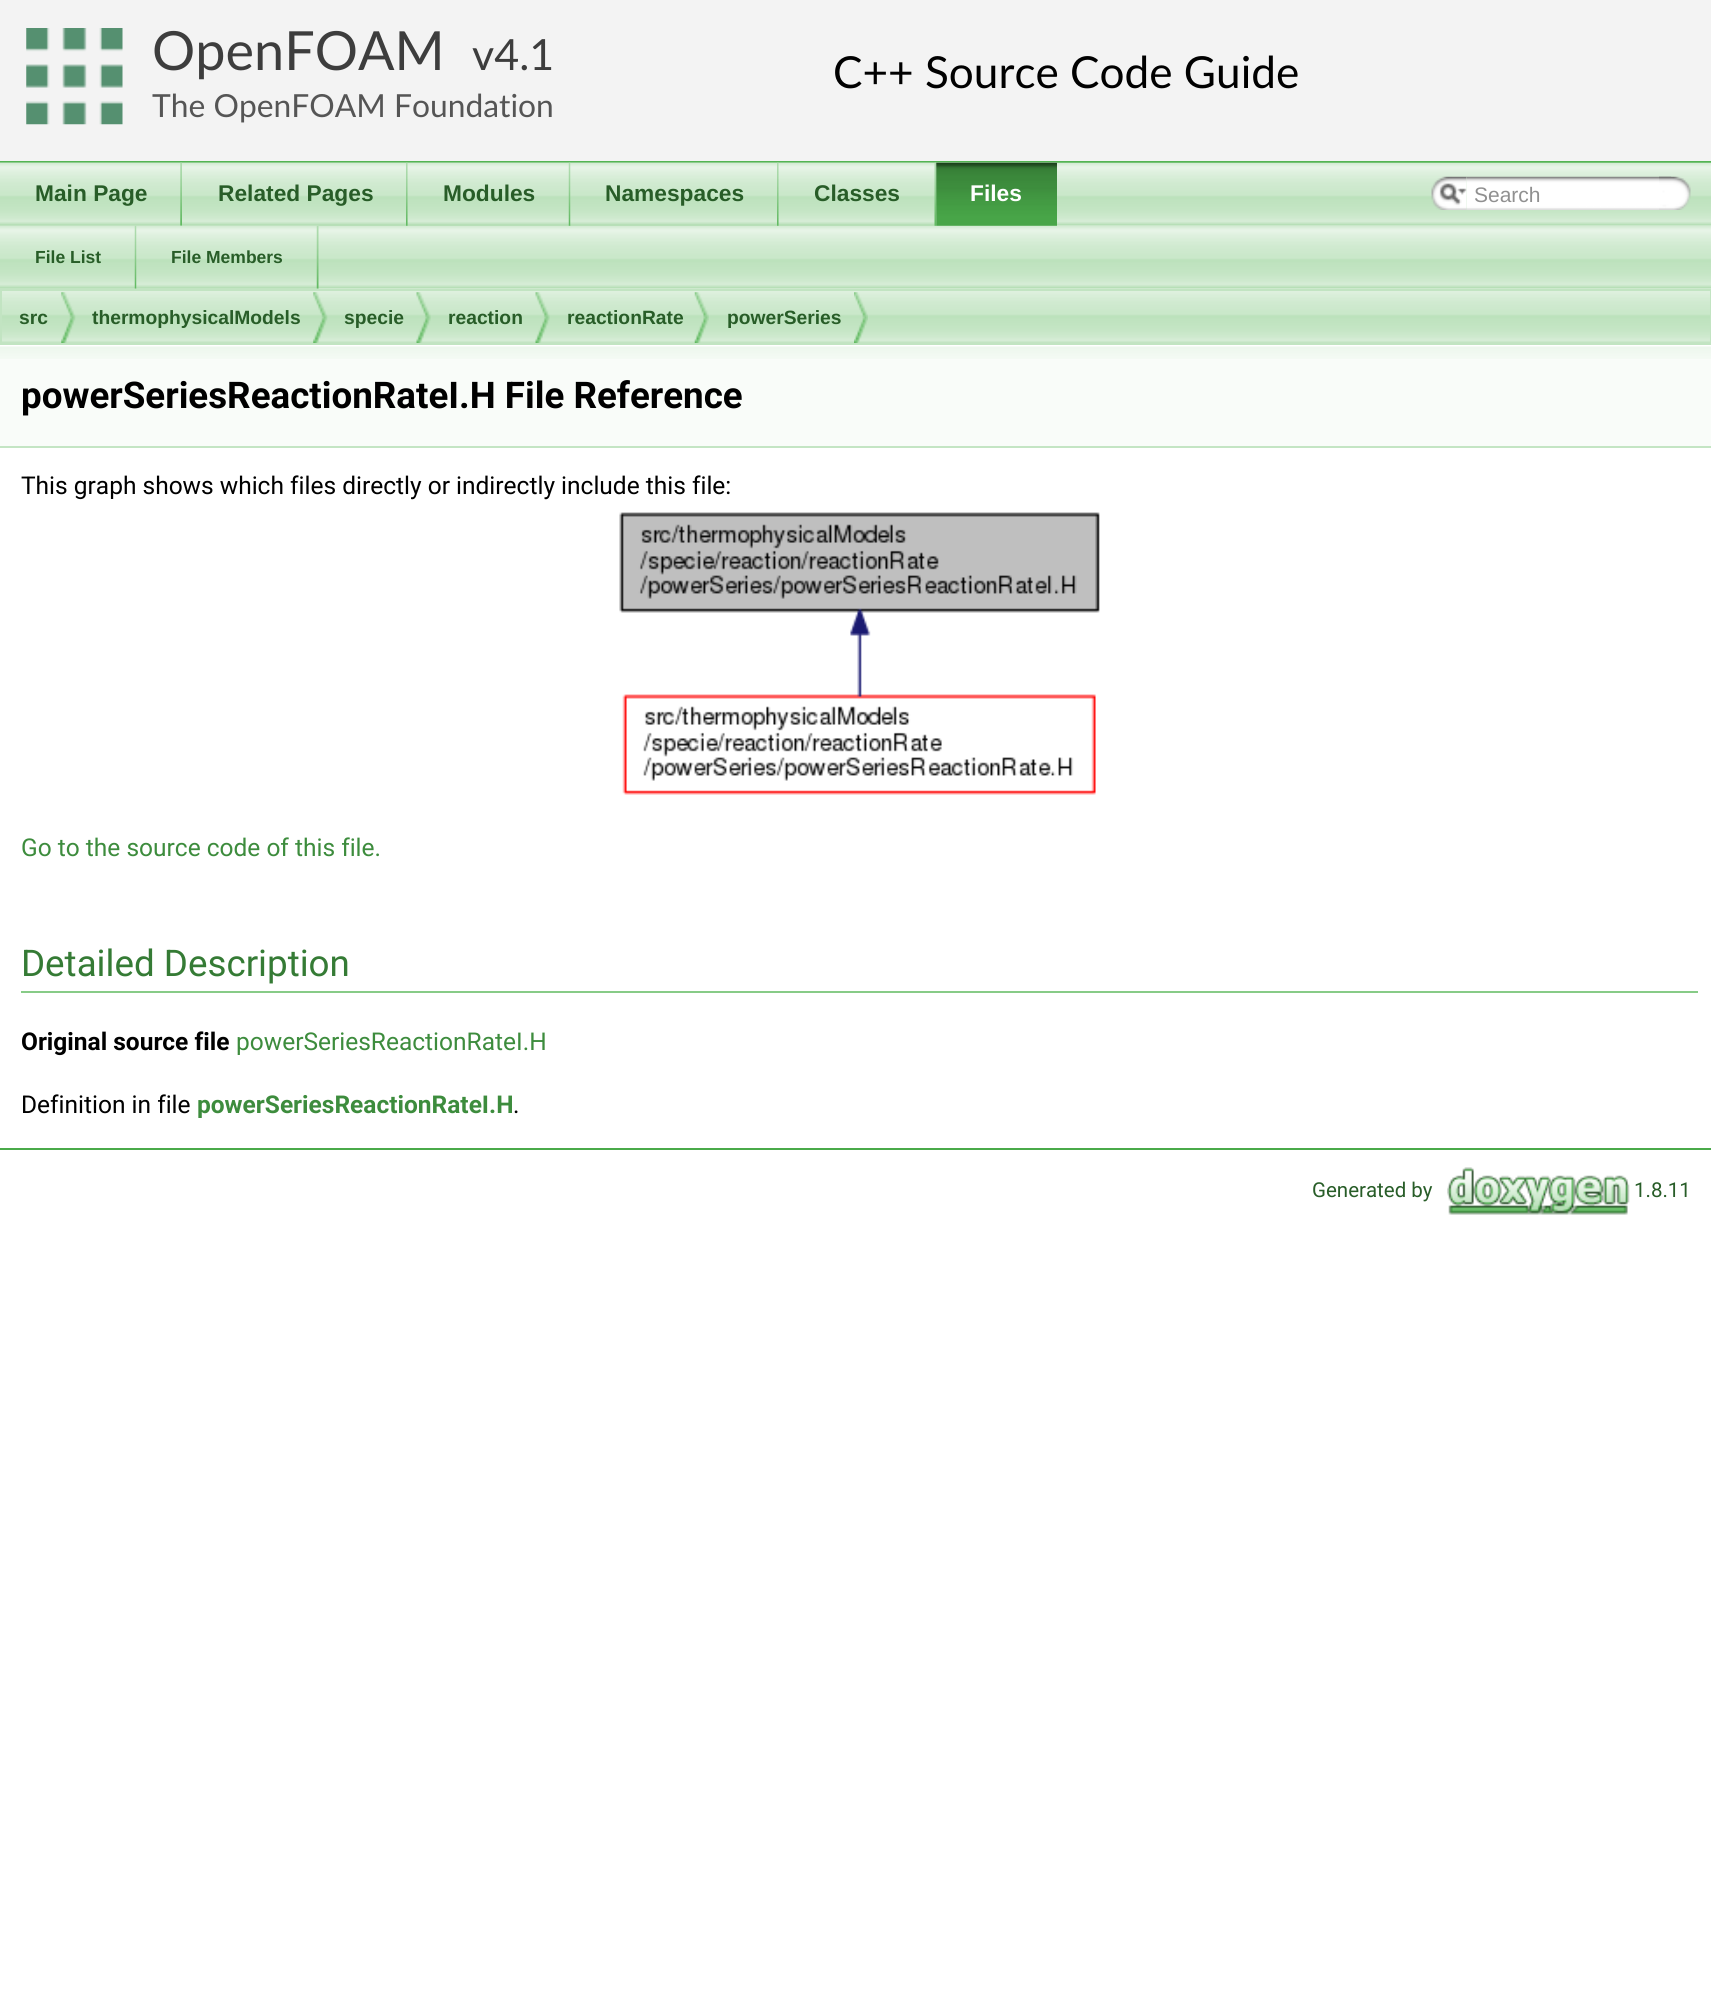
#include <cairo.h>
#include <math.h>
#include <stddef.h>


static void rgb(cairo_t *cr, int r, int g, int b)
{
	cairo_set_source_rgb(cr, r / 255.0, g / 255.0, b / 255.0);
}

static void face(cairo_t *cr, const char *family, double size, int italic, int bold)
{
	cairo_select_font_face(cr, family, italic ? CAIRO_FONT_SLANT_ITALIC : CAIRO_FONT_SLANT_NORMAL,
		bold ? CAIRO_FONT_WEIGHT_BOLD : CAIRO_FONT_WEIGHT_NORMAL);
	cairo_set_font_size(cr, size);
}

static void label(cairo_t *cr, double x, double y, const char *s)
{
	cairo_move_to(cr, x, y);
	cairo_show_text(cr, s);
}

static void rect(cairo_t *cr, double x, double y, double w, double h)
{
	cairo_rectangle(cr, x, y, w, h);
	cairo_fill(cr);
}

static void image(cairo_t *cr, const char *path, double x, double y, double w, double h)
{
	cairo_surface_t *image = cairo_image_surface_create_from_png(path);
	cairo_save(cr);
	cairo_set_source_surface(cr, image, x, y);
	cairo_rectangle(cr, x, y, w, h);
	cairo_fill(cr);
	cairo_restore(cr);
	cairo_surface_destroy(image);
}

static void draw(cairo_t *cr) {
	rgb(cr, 255, 255, 255);
	cairo_paint(cr);
	rgb(cr, 243, 243, 243);
	rect(cr, 0, 0, 1711, 161);
	rgb(cr, 83, 180, 83);
	rect(cr, 0, 161, 1711, 2);
	image(cr, "image0.png", 26, 28, 97, 97);
	face(cr, "Lato", 54, 0, 0);
	rgb(cr, 61, 61, 61);
	label(cr, 152, 70, "OpenFOAM");
	face(cr, "Lato", 43, 0, 0);
	label(cr, 472, 70, "v4.1");
	face(cr, "Lato", 31.8, 0, 0);
	rgb(cr, 85, 85, 85);
	label(cr, 152, 117, "The OpenFOAM Foundation");
	face(cr, "Lato", 44.1, 0, 0);
	rgb(cr, 0, 0, 0);
	label(cr, 833, 88, "C++ Source Code Guide");
	image(cr, "image1.png", 0, 162, 1711, 64);
	image(cr, "image17.png", 0, 225, 1711, 64);
	image(cr, "image2.png", 0, 162, 182, 64);
	image(cr, "image3.png", 180, 162, 2, 64);
	face(cr, "Liberation Sans", 22.75, 0, 1);
	rgb(cr, 40, 93, 40);
	label(cr, 35, 201, "Main Page");
	image(cr, "image4.png", 182, 162, 226, 64);
	image(cr, "image5.png", 406, 162, 2, 64);
	label(cr, 218, 201, "Related Pages");
	image(cr, "image6.png", 407, 162, 164, 64);
	image(cr, "image7.png", 568, 162, 3, 64);
	label(cr, 443, 201, "Modules");
	image(cr, "image8.png", 570, 162, 209, 64);
	image(cr, "image5.png", 777, 162, 2, 64);
	label(cr, 605, 201, "Namespaces");
	image(cr, "image9.png", 778, 162, 159, 64);
	image(cr, "image10.png", 934, 162, 3, 64);
	label(cr, 814, 201, "Classes");
	image(cr, "image11.png", 936, 162, 121, 64);
	image(cr, "image12.png", 936, 162, 121, 64);
	rgb(cr, 255, 255, 255);
	label(cr, 970, 201, "Files");
	image(cr, "image13.png", 1431, 176, 36, 34);
	image(cr, "image14.png", 1439, 183, 28, 22);
	image(cr, "image15.png", 1466, 176, 206, 34);
	face(cr, "Liberation Sans", 21, 0, 0);
	rgb(cr, 144, 144, 144);
	label(cr, 1474, 202, "Search");
	image(cr, "image16.png", 1659, 176, 32, 34);
	image(cr, "image18.png", 0, 225, 137, 64);
	image(cr, "image19.png", 134, 225, 3, 64);
	face(cr, "Liberation Sans", 17.5, 0, 1);
	rgb(cr, 40, 93, 40);
	label(cr, 35, 263, "File List");
	image(cr, "image20.png", 136, 225, 183, 64);
	image(cr, "image19.png", 316, 225, 3, 64);
	label(cr, 171, 263, "File Members");
	image(cr, "image21.png", 0, 288, 1711, 55);
	cairo_rectangle(cr, 1, 290, 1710, 54);
	rgb(cr, 194, 228, 194);
	cairo_stroke(cr);
	image(cr, "image22.png", 61, 292, 15, 51);
	face(cr, "Liberation Sans", 19.25, 0, 1);
	rgb(cr, 40, 93, 40);
	label(cr, 19, 324, "src");
	image(cr, "image22.png", 313, 292, 15, 51);
	label(cr, 92, 324, "thermophysicalModels");
	image(cr, "image23.png", 416, 292, 15, 51);
	label(cr, 344, 324, "specie");
	image(cr, "image23.png", 535, 292, 15, 51);
	label(cr, 448, 324, "reaction");
	image(cr, "image24.png", 694, 292, 15, 51);
	label(cr, 567, 324, "reactionRate");
	image(cr, "image25.png", 854, 292, 14, 51);
	label(cr, 727, 324, "powerSeries");
	rgb(cr, 249, 252, 249);
	rect(cr, 0, 359, 1711, 87);
	image(cr, "image26.png", 0, 345, 1711, 14);
	rgb(cr, 196, 229, 196);
	rect(cr, 0, 446, 1711, 2);
	face(cr, "Roboto", 36.75, 0, 1);
	rgb(cr, 0, 0, 0);
	label(cr, 21, 408, "powerSeriesReactionRateI.H File Reference");
	face(cr, "Roboto", 24.5, 0, 0);
	label(cr, 21, 494, "This graph shows which files directly or indirectly include this file:");
	image(cr, "image27.png", 619, 512, 481, 283);
	rgb(cr, 61, 140, 61);
	label(cr, 21, 856, "Go to the source code of this file.");
	rgb(cr, 135, 203, 135);
	rect(cr, 21, 991, 1677, 2);
	face(cr, "Roboto", 36.75, 0, 0);
	rgb(cr, 53, 123, 53);
	label(cr, 21, 976, "Detailed Description");
	face(cr, "Roboto", 24.5, 0, 1);
	rgb(cr, 0, 0, 0);
	label(cr, 21, 1050, "Original source file");
	face(cr, "Roboto", 24.5, 0, 0);
	rgb(cr, 61, 140, 61);
	label(cr, 236, 1050, "powerSeriesReactionRateI.H");
	rgb(cr, 0, 0, 0);
	label(cr, 21, 1113, "Definition in file");
	face(cr, "Roboto", 24.5, 0, 1);
	rgb(cr, 61, 140, 61);
	label(cr, 197, 1113, "powerSeriesReactionRateI.H");
	face(cr, "Roboto", 24.5, 0, 0);
	rgb(cr, 0, 0, 0);
	label(cr, 513, 1113, ".");
	rgb(cr, 74, 170, 74);
	rect(cr, 0, 1148, 1711, 2);
	face(cr, "Roboto", 20.5, 0, 0);
	rgb(cr, 40, 93, 40);
	label(cr, 1312, 1197, "Generated by");
	image(cr, "image28.png", 1447, 1167, 183, 48);
	label(cr, 1634, 1197, "1.8.11");
}

int main(void) {
	cairo_surface_t *surface = cairo_image_surface_create(CAIRO_FORMAT_RGB24, 1711, 1995);
	cairo_t *cr = cairo_create(surface);
	cairo_font_options_t *options = cairo_font_options_create();
	cairo_font_options_set_hint_metrics(options, CAIRO_HINT_METRICS_OFF);
	cairo_font_options_set_hint_style(options, CAIRO_HINT_STYLE_NONE);
	cairo_set_font_options(cr, options);
	cairo_set_miter_limit(cr, 4);
	draw(cr);
	cairo_surface_write_to_png(surface, "render.png");
	cairo_font_options_destroy(options);
	cairo_destroy(cr);
	cairo_surface_destroy(surface);
	return 0;
}
